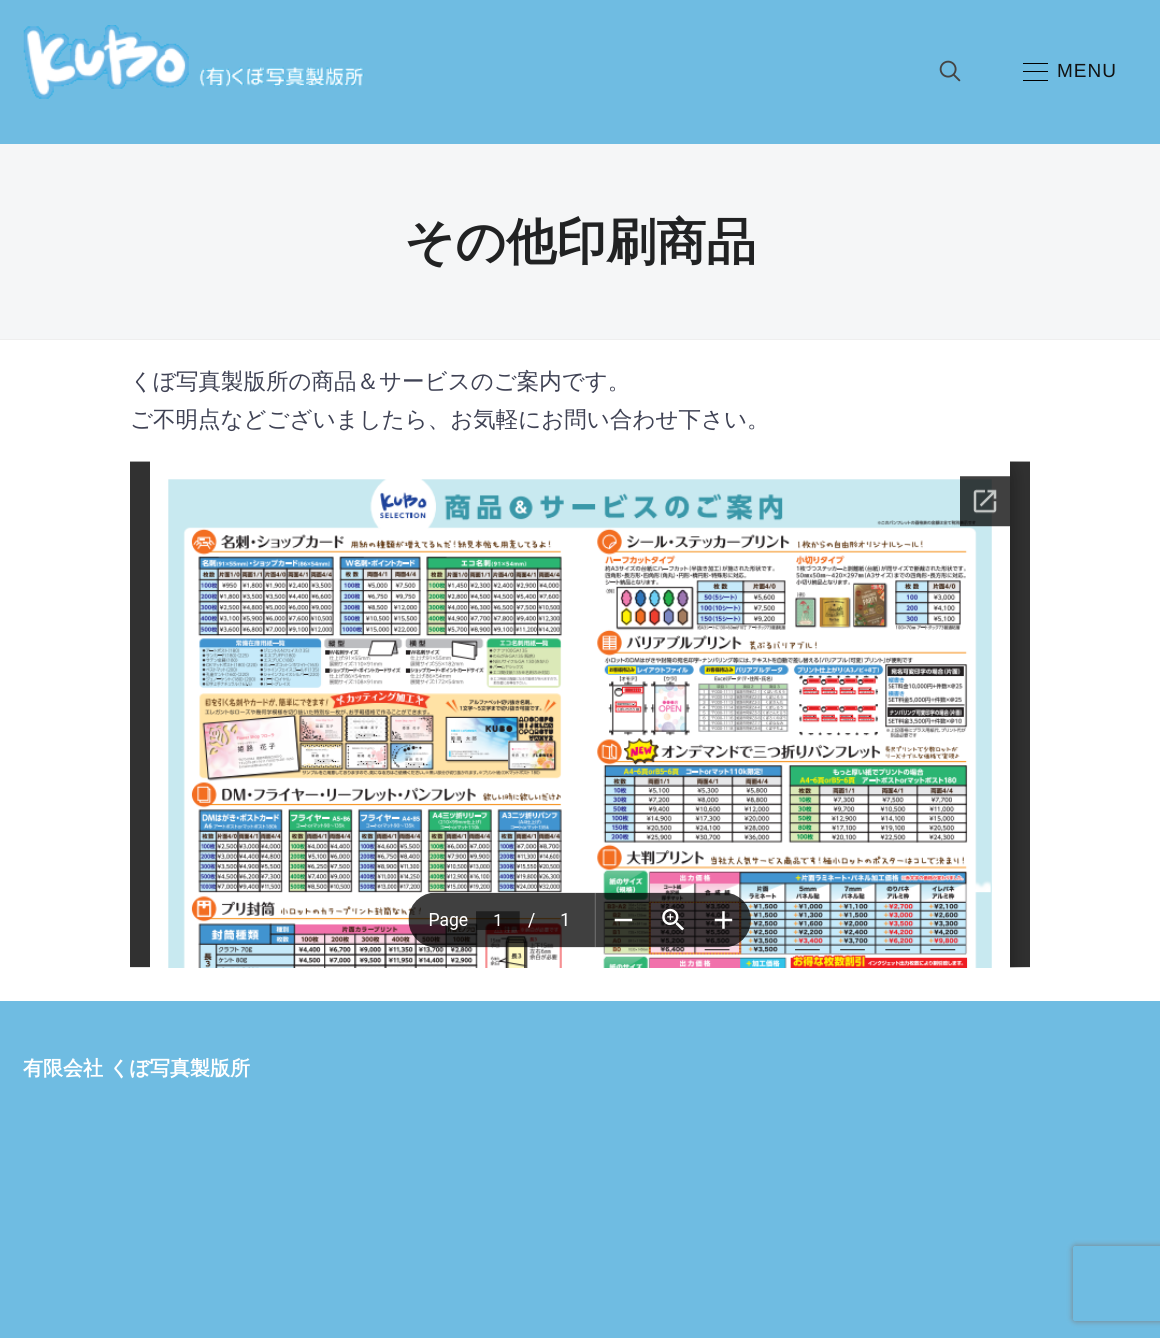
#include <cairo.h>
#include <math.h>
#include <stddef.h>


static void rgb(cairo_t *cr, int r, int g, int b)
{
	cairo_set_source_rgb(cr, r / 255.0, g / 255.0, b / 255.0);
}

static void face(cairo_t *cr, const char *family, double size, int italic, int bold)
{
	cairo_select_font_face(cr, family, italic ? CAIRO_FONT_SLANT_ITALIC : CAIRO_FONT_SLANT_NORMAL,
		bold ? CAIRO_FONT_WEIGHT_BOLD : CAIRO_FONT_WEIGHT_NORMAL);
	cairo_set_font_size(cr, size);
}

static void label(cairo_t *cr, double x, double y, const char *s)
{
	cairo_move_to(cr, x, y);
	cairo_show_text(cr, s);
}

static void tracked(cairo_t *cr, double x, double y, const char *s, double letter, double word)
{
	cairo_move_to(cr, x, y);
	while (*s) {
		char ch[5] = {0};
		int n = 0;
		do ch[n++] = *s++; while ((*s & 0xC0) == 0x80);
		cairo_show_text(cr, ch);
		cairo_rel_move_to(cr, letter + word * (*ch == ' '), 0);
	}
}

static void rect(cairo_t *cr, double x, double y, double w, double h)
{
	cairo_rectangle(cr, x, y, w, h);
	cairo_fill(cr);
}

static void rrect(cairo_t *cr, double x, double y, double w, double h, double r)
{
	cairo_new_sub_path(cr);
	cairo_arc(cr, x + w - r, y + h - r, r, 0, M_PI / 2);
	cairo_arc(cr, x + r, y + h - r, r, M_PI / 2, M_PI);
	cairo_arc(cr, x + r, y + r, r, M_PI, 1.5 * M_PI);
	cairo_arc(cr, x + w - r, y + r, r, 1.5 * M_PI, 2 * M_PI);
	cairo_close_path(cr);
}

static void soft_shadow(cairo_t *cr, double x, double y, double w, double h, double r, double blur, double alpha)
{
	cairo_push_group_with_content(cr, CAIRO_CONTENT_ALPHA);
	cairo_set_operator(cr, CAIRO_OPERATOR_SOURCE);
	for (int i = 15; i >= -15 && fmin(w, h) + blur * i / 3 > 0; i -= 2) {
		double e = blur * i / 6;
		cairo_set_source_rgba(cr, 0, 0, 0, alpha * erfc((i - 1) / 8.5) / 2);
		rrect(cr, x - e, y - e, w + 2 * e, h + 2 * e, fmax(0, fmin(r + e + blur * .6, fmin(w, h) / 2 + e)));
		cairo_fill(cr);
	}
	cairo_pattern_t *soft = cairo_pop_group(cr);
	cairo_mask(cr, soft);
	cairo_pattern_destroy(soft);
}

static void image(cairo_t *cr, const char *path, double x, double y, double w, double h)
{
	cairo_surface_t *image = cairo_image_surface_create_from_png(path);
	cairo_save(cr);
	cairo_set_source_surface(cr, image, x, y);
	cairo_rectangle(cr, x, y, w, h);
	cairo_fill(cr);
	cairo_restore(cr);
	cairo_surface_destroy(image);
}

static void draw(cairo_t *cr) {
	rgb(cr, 255, 255, 255);
	cairo_paint(cr);
	rgb(cr, 111, 188, 226);
	rect(cr, 0, 0, 1160, 144);
	image(cr, "image0.png", 23, 25, 341, 74);
	image(cr, "image1.png", 939, 60, 22, 22);
	rgb(cr, 0, 0, 0);
	rect(cr, 1023, 63, 25, 1);
	rect(cr, 1023, 71, 25, 1);
	rect(cr, 1023, 80, 25, 1);
	face(cr, "Liberation Sans", 19, 0, 0);
	rgb(cr, 17, 17, 17);
	tracked(cr, 1057, 77, "MENU", 1, 0);
	rgb(cr, 245, 246, 247);
	rect(cr, 0, 144, 1160, 195);
	rgb(cr, 238, 238, 238);
	rect(cr, 0, 339, 1160, 1);
	face(cr, "WenQuanYi Zen Hei", 50, 0, 1);
	rgb(cr, 33, 34, 35);
	label(cr, 404, 259, "その他印刷商品");
	face(cr, "WenQuanYi Zen Hei Medium", 22.5, 0, 0);
	rgb(cr, 63, 66, 84);
	label(cr, 130, 389, "くぼ写真製版所の商品＆サービスのご案内です。");
	label(cr, 130, 427, "ご不明点などございましたら、お気軽にお問い合わせ下さい。");
	image(cr, "image2.png", 130, 461, 900, 507);
	rgb(cr, 111, 188, 226);
	rect(cr, 0, 1001, 1160, 337);
	face(cr, "WenQuanYi Zen Hei", 20, 0, 1);
	rgb(cr, 255, 255, 255);
	label(cr, 23, 1075, "有限会社 くぼ写真製版所");
	cairo_save(cr);
	cairo_set_fill_rule(cr, CAIRO_FILL_RULE_EVEN_ODD);
	cairo_new_path(cr);
	cairo_move_to(cr, 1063, 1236);
	cairo_line_to(cr, 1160, 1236);
	cairo_line_to(cr, 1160, 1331);
	cairo_line_to(cr, 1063, 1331);
	cairo_close_path(cr);
	cairo_move_to(cr, 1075.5, 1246);
	cairo_line_to(cr, 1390.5, 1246);
	cairo_curve_to(cr, 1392, 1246, 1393, 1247, 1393, 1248.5);
	cairo_line_to(cr, 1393, 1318.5);
	cairo_curve_to(cr, 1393, 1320, 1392, 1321, 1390.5, 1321);
	cairo_line_to(cr, 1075.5, 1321);
	cairo_curve_to(cr, 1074, 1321, 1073, 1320, 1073, 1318.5);
	cairo_line_to(cr, 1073, 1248.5);
	cairo_curve_to(cr, 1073, 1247, 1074, 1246, 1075.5, 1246);
	cairo_close_path(cr);
	cairo_clip(cr);
	rgb(cr, 128, 128, 128);
	soft_shadow(cr, 1073, 1246, 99, 75, 2.5, 3, 1);
	cairo_restore(cr);
}

int main(void) {
	cairo_surface_t *surface = cairo_image_surface_create(CAIRO_FORMAT_RGB24, 1160, 1338);
	cairo_t *cr = cairo_create(surface);
	cairo_font_options_t *options = cairo_font_options_create();
	cairo_font_options_set_hint_metrics(options, CAIRO_HINT_METRICS_OFF);
	cairo_font_options_set_hint_style(options, CAIRO_HINT_STYLE_NONE);
	cairo_set_font_options(cr, options);
	cairo_set_miter_limit(cr, 4);
	draw(cr);
	cairo_surface_write_to_png(surface, "render.png");
	cairo_font_options_destroy(options);
	cairo_destroy(cr);
	cairo_surface_destroy(surface);
	return 0;
}
